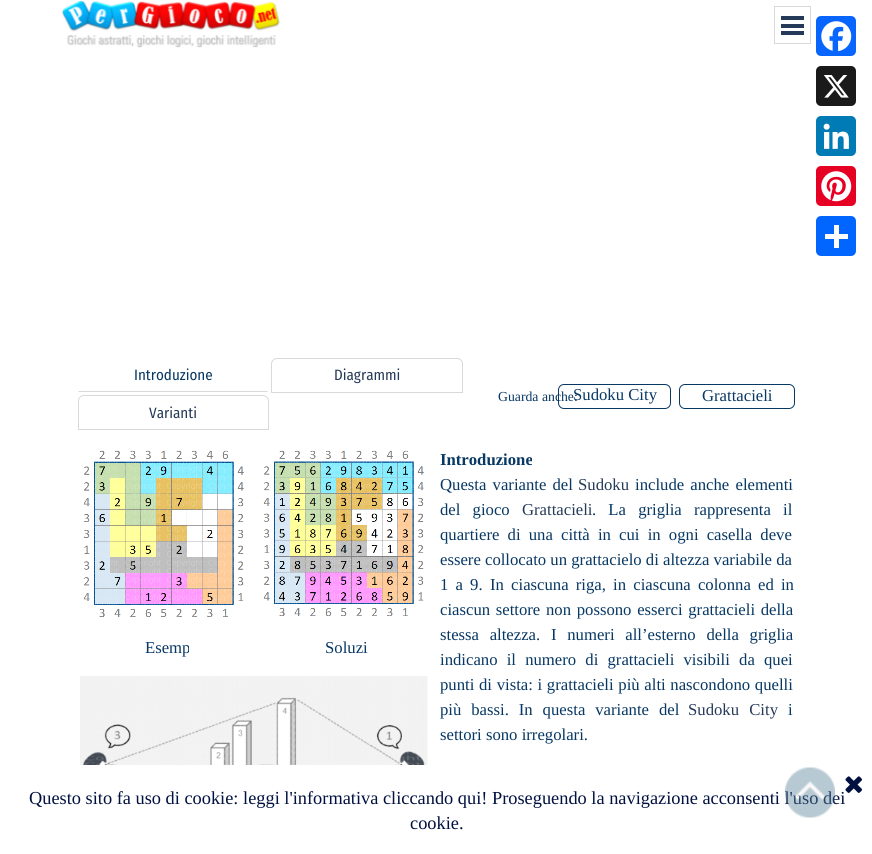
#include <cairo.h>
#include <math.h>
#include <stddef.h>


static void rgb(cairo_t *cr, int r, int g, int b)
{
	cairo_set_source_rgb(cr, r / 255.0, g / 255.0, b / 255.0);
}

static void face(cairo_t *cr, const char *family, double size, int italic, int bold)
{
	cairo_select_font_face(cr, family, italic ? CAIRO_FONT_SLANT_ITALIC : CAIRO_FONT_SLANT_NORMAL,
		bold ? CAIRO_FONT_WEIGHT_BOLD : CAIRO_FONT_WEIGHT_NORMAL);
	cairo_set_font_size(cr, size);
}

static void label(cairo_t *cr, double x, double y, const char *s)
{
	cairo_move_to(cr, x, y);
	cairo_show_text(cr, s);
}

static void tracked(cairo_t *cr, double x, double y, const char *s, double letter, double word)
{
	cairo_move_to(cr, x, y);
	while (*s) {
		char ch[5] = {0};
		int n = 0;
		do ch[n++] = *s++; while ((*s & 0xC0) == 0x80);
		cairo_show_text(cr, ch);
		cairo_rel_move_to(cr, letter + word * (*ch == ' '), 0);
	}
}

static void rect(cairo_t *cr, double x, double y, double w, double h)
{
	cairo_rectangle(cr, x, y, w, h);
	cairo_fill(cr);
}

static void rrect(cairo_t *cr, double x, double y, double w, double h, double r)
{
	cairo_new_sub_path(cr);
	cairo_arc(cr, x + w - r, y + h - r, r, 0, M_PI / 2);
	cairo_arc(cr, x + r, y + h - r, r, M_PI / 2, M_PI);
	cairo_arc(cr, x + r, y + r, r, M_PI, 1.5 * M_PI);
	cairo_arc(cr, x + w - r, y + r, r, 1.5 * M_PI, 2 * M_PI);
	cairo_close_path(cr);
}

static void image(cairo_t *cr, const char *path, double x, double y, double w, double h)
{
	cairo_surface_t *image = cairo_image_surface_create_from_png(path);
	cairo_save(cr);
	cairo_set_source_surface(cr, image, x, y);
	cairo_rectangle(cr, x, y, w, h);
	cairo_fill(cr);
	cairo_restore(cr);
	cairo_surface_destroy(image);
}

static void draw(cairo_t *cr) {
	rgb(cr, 255, 255, 255);
	cairo_paint(cr);
	rgb(cr, 8, 102, 255);
	rrect(cr, 816, 16, 40, 40, 5);
	cairo_fill(cr);
	image(cr, "image0.png", 821, 21, 31, 31);
	rgb(cr, 26, 26, 26);
	rrect(cr, 816, 66, 40, 40, 5);
	cairo_fill(cr);
	image(cr, "image1.png", 823, 75, 26, 23);
	rgb(cr, 0, 123, 181);
	rrect(cr, 816, 116, 40, 40, 5);
	cairo_fill(cr);
	image(cr, "image2.png", 823, 123, 26, 26);
	rgb(cr, 230, 0, 35);
	rrect(cr, 816, 166, 40, 40, 5);
	cairo_fill(cr);
	image(cr, "image3.png", 821, 171, 31, 31);
	rgb(cr, 1, 102, 255);
	rrect(cr, 816, 216, 40, 40, 5);
	cairo_fill(cr);
	rgb(cr, 255, 255, 255);
	rect(cr, 834, 225, 5, 23);
	rect(cr, 825, 234, 23, 5);
	image(cr, "image4.png", 62, 0, 218, 48);
	cairo_rectangle(cr, 774.5, 6.5, 36, 37);
	rgb(cr, 217, 217, 217);
	cairo_set_line_width(cr, 1);
	cairo_stroke(cr);
	rgb(cr, 37, 58, 88);
	rect(cr, 781, 16, 23, 4);
	rect(cr, 781, 24, 23, 4);
	rect(cr, 781, 31, 23, 4);
	rgb(cr, 217, 217, 217);
	cairo_new_path(cr);
	cairo_move_to(cr, 268, 392);
	cairo_line_to(cr, 78, 392);
	cairo_line_to(cr, 79, 391);
	cairo_line_to(cr, 267, 391);
	cairo_close_path(cr);
	cairo_fill(cr);
	face(cr, "Fira Sans Condensed", 15, 0, 0);
	rgb(cr, 7, 55, 99);
	label(cr, 134, 380, "Introduzione");
	cairo_new_path(cr);
	cairo_move_to(cr, 277, 358.5);
	cairo_line_to(cr, 457, 358.5);
	cairo_curve_to(cr, 460, 358.5, 462.5, 361, 462.5, 364);
	cairo_line_to(cr, 462.5, 392.5);
	cairo_line_to(cr, 271.5, 392.5);
	cairo_line_to(cr, 271.5, 364);
	cairo_curve_to(cr, 271.5, 361, 274, 358.5, 277, 358.5);
	cairo_close_path(cr);
	rgb(cr, 217, 217, 217);
	cairo_stroke(cr);
	rgb(cr, 37, 58, 88);
	label(cr, 334, 380, "Diagrammi");
	cairo_new_path(cr);
	cairo_move_to(cr, 84, 395.5);
	cairo_line_to(cr, 263, 395.5);
	cairo_curve_to(cr, 266, 395.5, 268.5, 398, 268.5, 401);
	cairo_line_to(cr, 268.5, 429.5);
	cairo_line_to(cr, 78.5, 429.5);
	cairo_line_to(cr, 78.5, 401);
	cairo_curve_to(cr, 78.5, 398, 81, 395.5, 84, 395.5);
	cairo_close_path(cr);
	rgb(cr, 217, 217, 217);
	cairo_stroke(cr);
	rgb(cr, 37, 58, 88);
	label(cr, 149, 418, "Varianti");
	face(cr, "Liberation Serif", 13.75, 0, 0);
	rgb(cr, 7, 55, 99);
	label(cr, 498, 401, "Guarda anche:");
	rrect(cr, 558.5, 384.5, 112, 24, 5.5);
	cairo_stroke(cr);
	face(cr, "Liberation Serif", 16.7, 0, 0);
	label(cr, 573, 400, "Sudoku City");
	rrect(cr, 679.5, 384.5, 115, 24, 5.5);
	cairo_stroke(cr);
	label(cr, 702, 401, "Grattacieli");
	image(cr, "image5.png", 83, 450, 161, 167);
	cairo_save(cr);
	cairo_rectangle(cr, 139, 633, 50, 32);
	cairo_clip(cr);
	label(cr, 145, 653, "Esemp");
	cairo_restore(cr);
	image(cr, "image6.png", 263, 450, 161, 166);
	label(cr, 325, 653, "Soluzi");
	face(cr, "Liberation Serif", 16.7, 0, 1);
	label(cr, 440, 465, "Introduzione");
	face(cr, "Liberation Serif", 16.7, 0, 0);
	tracked(cr, 440, 490, "Questa variante del", 0, 2);
	rgb(cr, 37, 58, 88);
	label(cr, 578, 490, "Sudoku");
	rgb(cr, 7, 55, 99);
	tracked(cr, 635, 490, "include anche elementi", 0, 2);
	tracked(cr, 440, 515, "del gioco", 0, 8);
	rgb(cr, 37, 58, 88);
	label(cr, 522, 515, "Grattacieli");
	rgb(cr, 7, 55, 99);
	tracked(cr, 592, 515, ". La griglia rappresenta il", 0, 8);
	tracked(cr, 440, 540, "quartiere di una città in cui in ogni casella deve", 0, 4);
	label(cr, 440, 565, "essere collocato un grattacielo di altezza variabile da");
	tracked(cr, 440, 590, "1 a 9.", 0, 3);
	tracked(cr, 490, 590, "In ciascuna riga, in ciascuna colonna ed in", 0, 3);
	tracked(cr, 440, 615, "ciascun settore non possono esserci grattacieli della", 0, 1.5);
	tracked(cr, 440, 640, "stessa altezza.", 0, 6.5);
	tracked(cr, 551, 640, "I numeri all’esterno della griglia", 0, 6.5);
	tracked(cr, 440, 665, "indicano il numero di grattacieli visibili da quei", 0, 5);
	tracked(cr, 440, 690, "punti di vista: i grattacieli più alti nascondono quelli", 0, 0.5);
	tracked(cr, 440, 715, "più bassi. In questa variante del", 0, 5.75);
	rgb(cr, 37, 58, 88);
	tracked(cr, 688, 715, "Sudoku City", 0, 6);
	rgb(cr, 7, 55, 99);
	label(cr, 788, 715, "i");
	label(cr, 440, 740, "settori sono irregolari.");
	image(cr, "image7.png", 80, 676, 348, 89);
	face(cr, "Liberation Serif", 18.35, 0, 0);
	rgb(cr, 0, 16, 64);
	label(cr, 29, 804, "Questo sito fa uso di cookie: leggi l'informativa cliccando qui! Proseguendo la navigazione acconsenti l'uso dei");
	image(cr, "image8.png", 785, 767, 50, 51);
	image(cr, "image9.png", 845, 776, 17, 17);
	label(cr, 410, 829, "cookie.");
}

int main(void) {
	cairo_surface_t *surface = cairo_image_surface_create(CAIRO_FORMAT_RGB24, 872, 854);
	cairo_t *cr = cairo_create(surface);
	cairo_font_options_t *options = cairo_font_options_create();
	cairo_font_options_set_hint_metrics(options, CAIRO_HINT_METRICS_OFF);
	cairo_font_options_set_hint_style(options, CAIRO_HINT_STYLE_NONE);
	cairo_set_font_options(cr, options);
	cairo_set_miter_limit(cr, 4);
	draw(cr);
	cairo_surface_write_to_png(surface, "render.png");
	cairo_font_options_destroy(options);
	cairo_destroy(cr);
	cairo_surface_destroy(surface);
	return 0;
}
